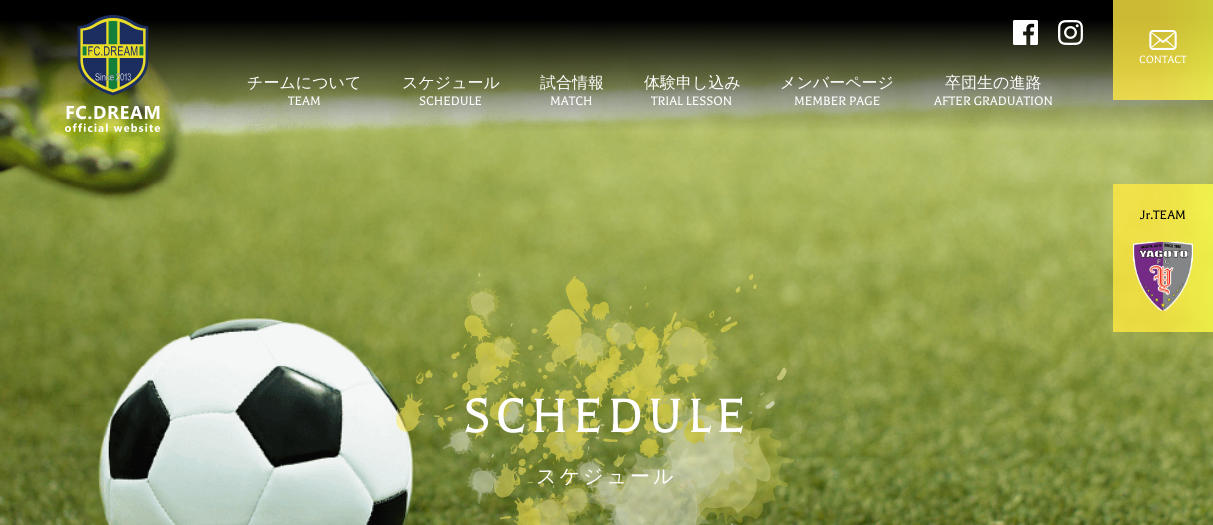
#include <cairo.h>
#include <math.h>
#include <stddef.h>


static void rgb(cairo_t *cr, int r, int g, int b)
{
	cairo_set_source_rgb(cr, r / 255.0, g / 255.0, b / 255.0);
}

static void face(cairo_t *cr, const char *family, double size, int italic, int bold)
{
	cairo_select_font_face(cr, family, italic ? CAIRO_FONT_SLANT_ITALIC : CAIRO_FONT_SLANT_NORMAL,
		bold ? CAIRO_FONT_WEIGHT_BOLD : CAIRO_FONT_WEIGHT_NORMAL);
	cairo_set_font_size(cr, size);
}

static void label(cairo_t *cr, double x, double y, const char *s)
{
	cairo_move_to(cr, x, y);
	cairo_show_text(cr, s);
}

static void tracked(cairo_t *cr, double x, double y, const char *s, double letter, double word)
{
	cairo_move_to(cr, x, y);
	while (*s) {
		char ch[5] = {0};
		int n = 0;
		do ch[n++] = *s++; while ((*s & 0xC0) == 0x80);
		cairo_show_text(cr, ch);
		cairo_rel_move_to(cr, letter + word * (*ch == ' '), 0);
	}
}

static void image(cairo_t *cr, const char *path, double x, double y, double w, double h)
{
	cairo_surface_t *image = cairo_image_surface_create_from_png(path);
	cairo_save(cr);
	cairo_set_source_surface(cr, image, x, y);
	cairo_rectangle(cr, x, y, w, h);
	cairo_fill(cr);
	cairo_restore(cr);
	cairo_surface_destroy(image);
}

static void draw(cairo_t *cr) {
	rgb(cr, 255, 255, 255);
	cairo_paint(cr);
	image(cr, "image0.png", 0, 0, 1213, 525);
	image(cr, "image1.png", 65, 15, 95, 117);
	image(cr, "image2.png", 1013, 20, 25, 25);
	image(cr, "image3.png", 1058, 20, 25, 25);
	image(cr, "image4.png", 1149, 30, 28, 20);
	face(cr, "Balthazar", 12, 0, 0);
	rgb(cr, 255, 255, 255);
	label(cr, 1139, 63, "CONTACT");
	face(cr, "WenQuanYi Zen Hei Medium", 16, 0, 0);
	label(cr, 247, 88, "チームについて");
	face(cr, "Balthazar", 14, 0, 0);
	label(cr, 288, 105, "TEAM");
	face(cr, "WenQuanYi Zen Hei Medium", 16, 0, 0);
	label(cr, 402, 88, "スケジュール");
	face(cr, "Balthazar", 14, 0, 0);
	label(cr, 419, 105, "SCHEDULE");
	face(cr, "WenQuanYi Zen Hei Medium", 16, 0, 0);
	label(cr, 540, 88, "試合情報");
	face(cr, "Balthazar", 14, 0, 0);
	label(cr, 550, 105, "MATCH");
	face(cr, "WenQuanYi Zen Hei Medium", 16, 0, 0);
	label(cr, 644, 88, "体験申し込み");
	face(cr, "Balthazar", 14, 0, 0);
	label(cr, 651, 105, "TRIAL LESSON");
	face(cr, "WenQuanYi Zen Hei Medium", 16, 0, 0);
	label(cr, 780, 88, "メンバーページ");
	face(cr, "Balthazar", 14, 0, 0);
	label(cr, 794, 105, "MEMBER PAGE");
	face(cr, "WenQuanYi Zen Hei Medium", 16, 0, 0);
	label(cr, 945, 88, "卒団生の進路");
	face(cr, "Balthazar", 14, 0, 0);
	label(cr, 934, 105, "AFTER GRADUATION");
	image(cr, "image5.png", 395, 273, 400, 252);
	face(cr, "Balthazar", 55, 0, 0);
	tracked(cr, 463, 432, "SCHEDULE", 5, 0);
	face(cr, "WenQuanYi Zen Hei Medium", 20, 0, 0);
	tracked(cr, 536, 483, "スケジュール", 3, 0);
	face(cr, "Balthazar", 14, 0, 0);
	rgb(cr, 0, 0, 0);
	label(cr, 1140, 219, "Jr.TEAM");
	image(cr, "image6.png", 1133, 241, 60, 70);
}

int main(void) {
	cairo_surface_t *surface = cairo_image_surface_create(CAIRO_FORMAT_RGB24, 1213, 525);
	cairo_t *cr = cairo_create(surface);
	cairo_font_options_t *options = cairo_font_options_create();
	cairo_font_options_set_hint_metrics(options, CAIRO_HINT_METRICS_OFF);
	cairo_font_options_set_hint_style(options, CAIRO_HINT_STYLE_NONE);
	cairo_set_font_options(cr, options);
	cairo_set_miter_limit(cr, 4);
	draw(cr);
	cairo_surface_write_to_png(surface, "render.png");
	cairo_font_options_destroy(options);
	cairo_destroy(cr);
	cairo_surface_destroy(surface);
	return 0;
}
